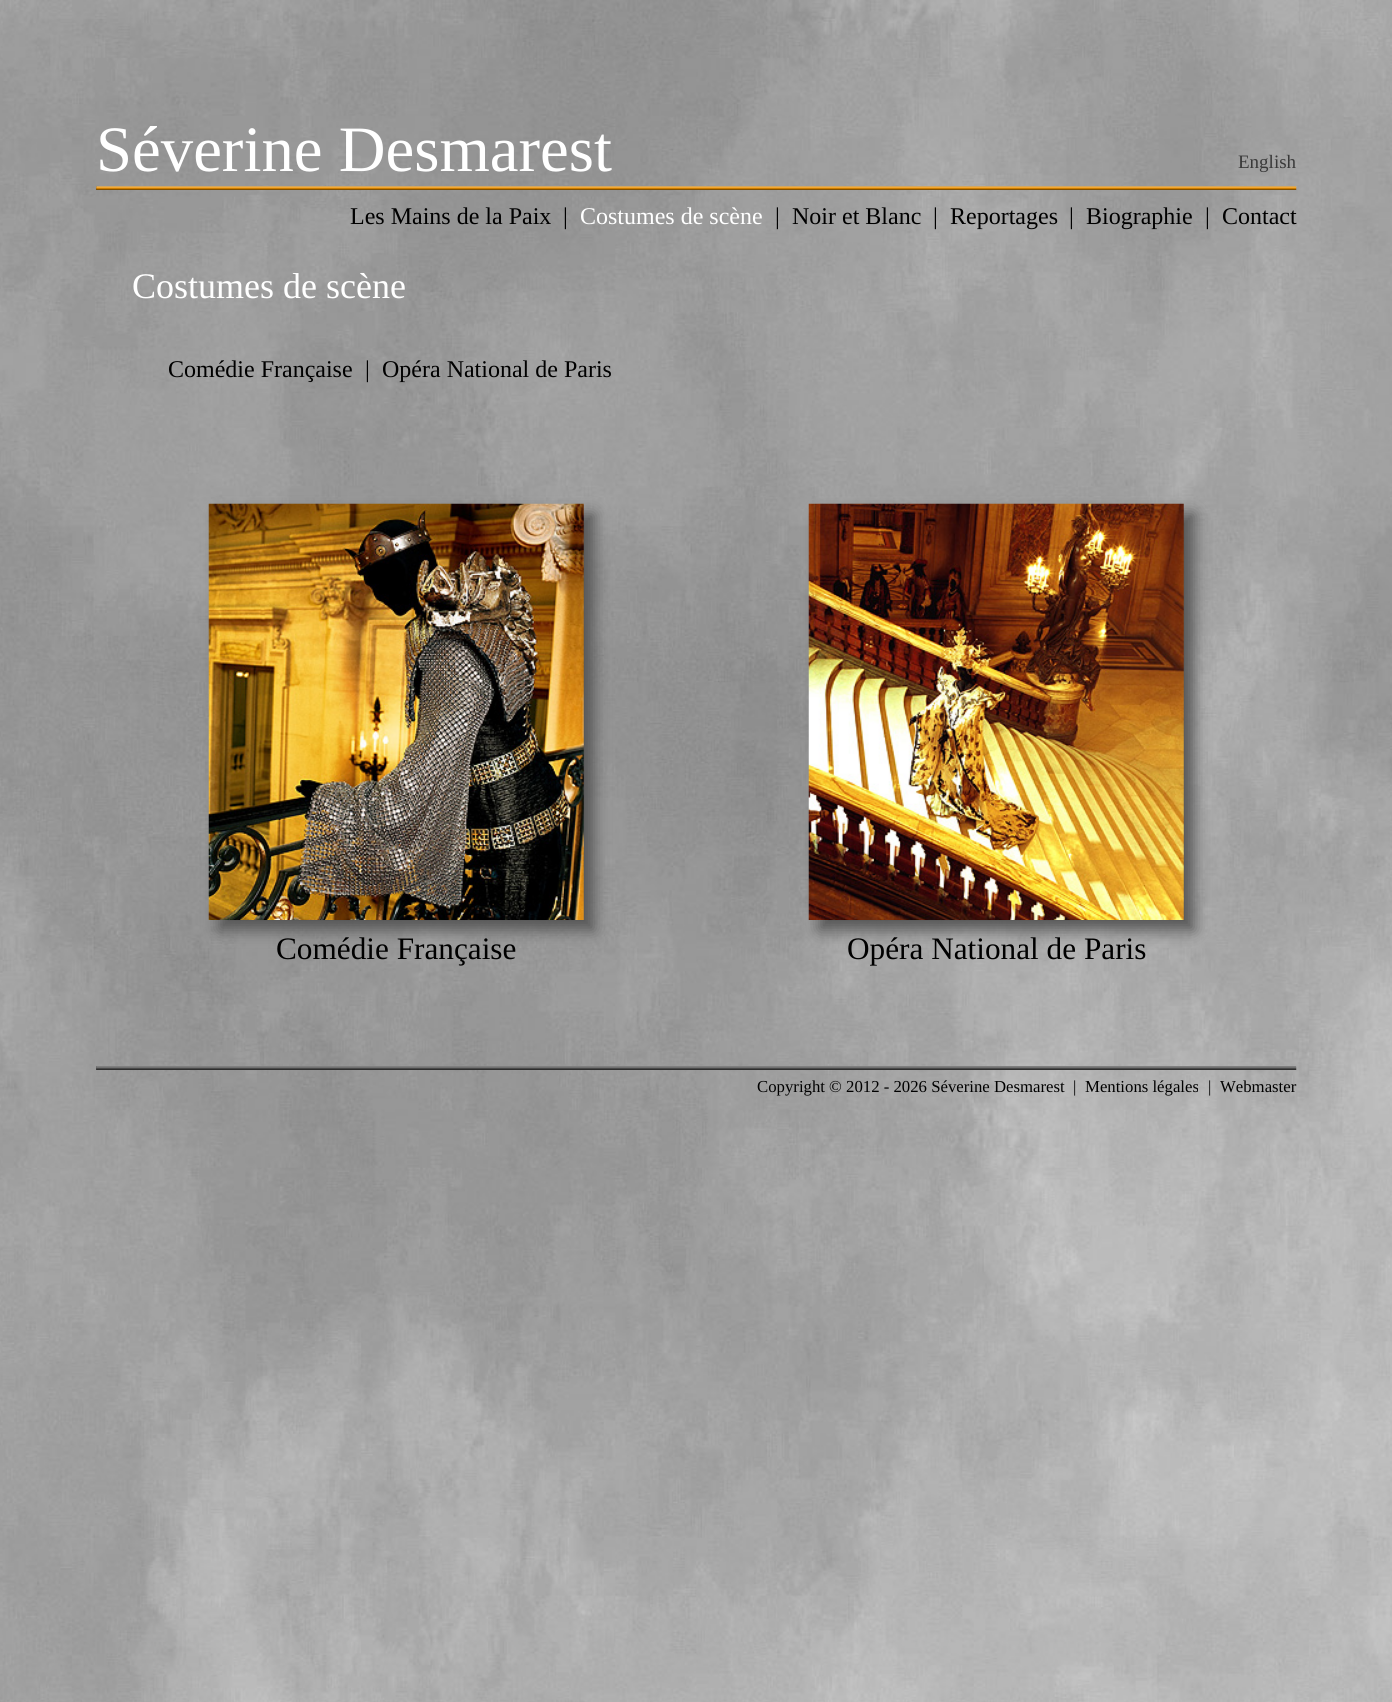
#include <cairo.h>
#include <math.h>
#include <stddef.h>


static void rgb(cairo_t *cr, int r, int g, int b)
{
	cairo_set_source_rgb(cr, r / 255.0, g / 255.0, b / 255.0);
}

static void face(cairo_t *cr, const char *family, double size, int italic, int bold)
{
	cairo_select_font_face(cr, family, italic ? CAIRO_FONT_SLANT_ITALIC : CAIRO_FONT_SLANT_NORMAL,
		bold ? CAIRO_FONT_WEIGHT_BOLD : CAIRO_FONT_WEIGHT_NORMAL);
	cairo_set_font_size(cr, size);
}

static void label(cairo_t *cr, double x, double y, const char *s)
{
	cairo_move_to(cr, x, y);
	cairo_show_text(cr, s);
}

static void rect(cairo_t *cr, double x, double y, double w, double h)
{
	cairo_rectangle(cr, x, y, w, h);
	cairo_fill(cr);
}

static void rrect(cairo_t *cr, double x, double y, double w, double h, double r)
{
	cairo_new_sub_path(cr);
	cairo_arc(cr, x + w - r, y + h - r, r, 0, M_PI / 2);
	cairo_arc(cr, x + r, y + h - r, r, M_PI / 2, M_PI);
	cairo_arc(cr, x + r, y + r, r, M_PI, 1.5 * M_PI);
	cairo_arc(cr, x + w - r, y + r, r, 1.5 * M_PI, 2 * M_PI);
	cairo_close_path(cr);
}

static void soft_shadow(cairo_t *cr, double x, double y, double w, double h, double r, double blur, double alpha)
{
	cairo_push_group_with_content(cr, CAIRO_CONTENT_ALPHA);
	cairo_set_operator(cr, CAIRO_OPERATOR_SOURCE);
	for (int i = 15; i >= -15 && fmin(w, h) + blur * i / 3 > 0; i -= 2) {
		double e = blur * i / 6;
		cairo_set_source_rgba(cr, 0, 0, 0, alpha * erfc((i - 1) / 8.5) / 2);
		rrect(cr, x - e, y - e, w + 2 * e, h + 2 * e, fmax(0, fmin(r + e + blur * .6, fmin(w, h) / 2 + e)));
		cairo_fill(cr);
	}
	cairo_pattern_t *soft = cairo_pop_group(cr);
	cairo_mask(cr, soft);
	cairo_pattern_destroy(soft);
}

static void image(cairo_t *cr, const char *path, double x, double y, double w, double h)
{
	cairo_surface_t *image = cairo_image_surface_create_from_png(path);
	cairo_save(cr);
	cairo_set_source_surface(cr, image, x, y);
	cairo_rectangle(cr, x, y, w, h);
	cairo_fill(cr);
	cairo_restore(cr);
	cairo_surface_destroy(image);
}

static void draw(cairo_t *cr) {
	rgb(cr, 255, 255, 255);
	cairo_paint(cr);
	image(cr, "image0.png", 0, 0, 1392, 1702);
	face(cr, "Liberation Serif", 64.75, 0, 0);
	rgb(cr, 255, 255, 255);
	label(cr, 96, 171, "Séverine Desmarest");
	face(cr, "Liberation Serif", 19, 0, 0);
	rgb(cr, 57, 57, 57);
	label(cr, 1238, 168, "English");
	rgb(cr, 85, 85, 85);
	rect(cr, 96, 186, 1200, 4);
	image(cr, "image1.png", 96, 186, 1201, 4);
	face(cr, "Liberation Serif", 24, 0, 0);
	rgb(cr, 0, 0, 0);
	label(cr, 350, 224, "Les Mains de la Paix");
	label(cr, 563, 224, "|");
	rgb(cr, 255, 255, 255);
	label(cr, 580, 224, "Costumes de scène");
	rgb(cr, 0, 0, 0);
	label(cr, 775, 224, "|");
	label(cr, 792, 224, "Noir et Blanc");
	label(cr, 933, 224, "|");
	label(cr, 950, 224, "Reportages");
	label(cr, 1069, 224, "|");
	label(cr, 1086, 224, "Biographie");
	label(cr, 1205, 224, "|");
	label(cr, 1222, 224, "Contact");
	face(cr, "Liberation Serif", 36, 0, 0);
	rgb(cr, 255, 255, 255);
	label(cr, 132, 298, "Costumes de scène");
	face(cr, "Liberation Serif", 24, 0, 0);
	rgb(cr, 0, 0, 0);
	label(cr, 168, 377, "Comédie Française");
	label(cr, 365, 377, "|");
	label(cr, 382, 377, "Opéra National de Paris");
	rgb(cr, 85, 85, 85);
	soft_shadow(cr, 219, 514, 375, 416, 0, 7.5, 1);
	image(cr, "image2.png", 208, 503, 376, 417);
	face(cr, "Liberation Serif", 31.25, 0, 0);
	rgb(cr, 0, 0, 0);
	label(cr, 276, 959, "Comédie Française");
	rgb(cr, 85, 85, 85);
	soft_shadow(cr, 819, 514, 375, 416, 0, 7.5, 1);
	image(cr, "image3.png", 808, 503, 376, 417);
	rgb(cr, 0, 0, 0);
	label(cr, 847, 959, "Opéra National de Paris");
	rgb(cr, 85, 85, 85);
	rect(cr, 96, 1066, 1200, 4);
	image(cr, "image4.png", 96, 1066, 1201, 4);
	face(cr, "Liberation Serif", 16.75, 0, 0);
	rgb(cr, 0, 0, 0);
	label(cr, 757, 1092, "Copyright © 2012 - 2026 Séverine Desmarest  |");
	label(cr, 1085, 1092, "Mentions légales");
	label(cr, 1208, 1092, "|");
	label(cr, 1220, 1092, "Webmaster");
}

int main(void) {
	cairo_surface_t *surface = cairo_image_surface_create(CAIRO_FORMAT_RGB24, 1392, 1702);
	cairo_t *cr = cairo_create(surface);
	cairo_font_options_t *options = cairo_font_options_create();
	cairo_font_options_set_hint_metrics(options, CAIRO_HINT_METRICS_OFF);
	cairo_font_options_set_hint_style(options, CAIRO_HINT_STYLE_NONE);
	cairo_set_font_options(cr, options);
	cairo_set_miter_limit(cr, 4);
	draw(cr);
	cairo_surface_write_to_png(surface, "render.png");
	cairo_font_options_destroy(options);
	cairo_destroy(cr);
	cairo_surface_destroy(surface);
	return 0;
}
